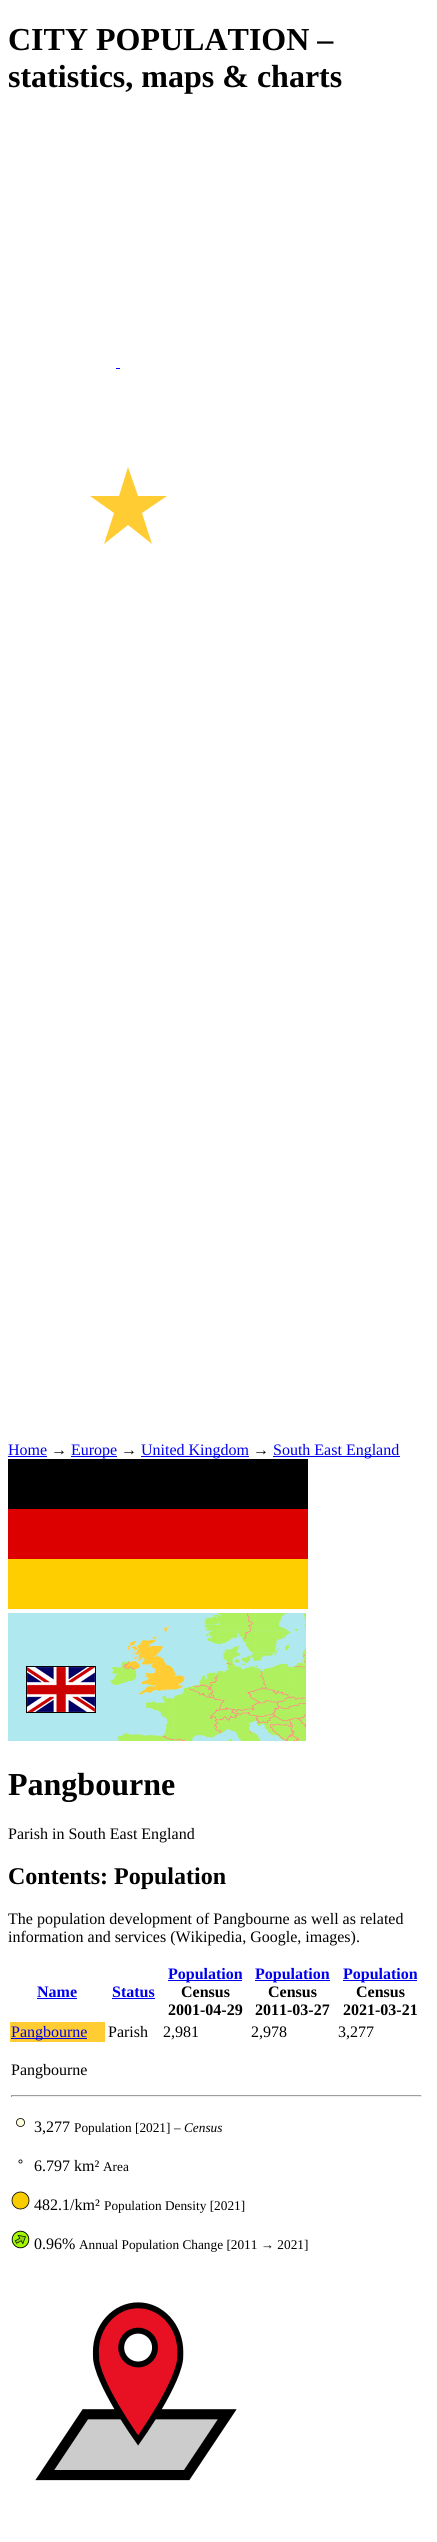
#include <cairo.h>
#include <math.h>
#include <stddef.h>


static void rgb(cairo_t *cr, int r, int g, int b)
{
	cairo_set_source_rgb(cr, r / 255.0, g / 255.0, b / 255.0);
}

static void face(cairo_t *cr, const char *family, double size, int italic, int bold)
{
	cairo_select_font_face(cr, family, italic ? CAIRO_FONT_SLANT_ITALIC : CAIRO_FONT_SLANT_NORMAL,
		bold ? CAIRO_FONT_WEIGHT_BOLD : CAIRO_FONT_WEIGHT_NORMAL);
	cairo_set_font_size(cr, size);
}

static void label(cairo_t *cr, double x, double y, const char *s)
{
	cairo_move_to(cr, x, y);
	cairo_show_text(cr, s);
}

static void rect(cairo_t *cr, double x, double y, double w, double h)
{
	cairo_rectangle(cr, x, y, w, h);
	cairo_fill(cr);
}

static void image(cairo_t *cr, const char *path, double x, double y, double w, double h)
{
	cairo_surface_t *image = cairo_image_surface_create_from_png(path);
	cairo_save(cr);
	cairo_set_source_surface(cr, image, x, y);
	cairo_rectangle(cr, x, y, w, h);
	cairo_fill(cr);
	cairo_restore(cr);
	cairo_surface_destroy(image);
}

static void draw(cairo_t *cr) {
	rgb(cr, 255, 255, 255);
	cairo_paint(cr);
	face(cr, "Liberation Serif", 32, 0, 1);
	rgb(cr, 0, 0, 0);
	label(cr, 8, 50, "CITY POPULATION –");
	label(cr, 8, 87, "statistics, maps & charts");
	rgb(cr, 0, 0, 238);
	rect(cr, 116, 368, 4, 1);
	rgb(cr, 255, 204, 51);
	cairo_set_fill_rule(cr, CAIRO_FILL_RULE_EVEN_ODD);
	cairo_new_path(cr);
	cairo_move_to(cr, 128, 525);
	cairo_line_to(cr, 104, 544);
	cairo_line_to(cr, 114, 513);
	cairo_line_to(cr, 90, 496);
	cairo_line_to(cr, 119, 496);
	cairo_line_to(cr, 128, 467);
	cairo_line_to(cr, 138, 496);
	cairo_line_to(cr, 167, 496);
	cairo_line_to(cr, 142, 513);
	cairo_line_to(cr, 152, 544);
	cairo_close_path(cr);
	cairo_fill(cr);
	face(cr, "Liberation Serif", 16, 0, 0);
	rgb(cr, 0, 0, 238);
	label(cr, 8, 1455, "Home");
	rect(cr, 8, 1456, 39, 1);
	rgb(cr, 0, 0, 0);
	label(cr, 51, 1455, "→");
	rgb(cr, 0, 0, 238);
	rect(cr, 71, 1456, 46, 1);
	label(cr, 71, 1455, "Europe");
	rgb(cr, 0, 0, 0);
	label(cr, 121, 1455, "→");
	rgb(cr, 0, 0, 238);
	rect(cr, 141, 1456, 108, 1);
	label(cr, 141, 1455, "United Kingdom");
	rgb(cr, 0, 0, 0);
	label(cr, 253, 1455, "→");
	rgb(cr, 0, 0, 238);
	rect(cr, 273, 1456, 127, 1);
	label(cr, 273, 1455, "South East England");
	rgb(cr, 0, 0, 0);
	rect(cr, 8, 1459, 300, 50);
	rgb(cr, 221, 0, 0);
	rect(cr, 8, 1509, 300, 50);
	rgb(cr, 255, 206, 0);
	rect(cr, 8, 1559, 300, 50);
	image(cr, "image0.png", 8, 1613, 298, 128);
	face(cr, "Liberation Serif", 32, 0, 1);
	rgb(cr, 0, 0, 0);
	label(cr, 8, 1795, "Pangbourne");
	face(cr, "Liberation Serif", 16, 0, 0);
	label(cr, 8, 1839, "Parish in South East England");
	face(cr, "Liberation Serif", 24, 0, 1);
	label(cr, 8, 1884, "Contents: Population");
	face(cr, "Liberation Serif", 16, 0, 0);
	label(cr, 8, 1924, "The population development of Pangbourne as well as related");
	label(cr, 8, 1942, "information and services (Wikipedia, Google, images).");
	face(cr, "Liberation Serif", 16, 0, 1);
	rgb(cr, 0, 0, 238);
	label(cr, 37, 1997, "Name");
	rect(cr, 37, 1998, 40, 1);
	label(cr, 112, 1997, "Status");
	rect(cr, 112, 1998, 43, 1);
	rect(cr, 168, 1980, 74, 1);
	label(cr, 168, 1979, "Population");
	rgb(cr, 0, 0, 0);
	label(cr, 181, 1997, "Census");
	label(cr, 168, 2015, "2001-04-29");
	rgb(cr, 0, 0, 238);
	rect(cr, 255, 1980, 75, 1);
	label(cr, 255, 1979, "Population");
	rgb(cr, 0, 0, 0);
	label(cr, 268, 1997, "Census");
	label(cr, 255, 2015, "2011-03-27");
	rgb(cr, 0, 0, 238);
	rect(cr, 343, 1980, 74, 1);
	label(cr, 343, 1979, "Population");
	rgb(cr, 0, 0, 0);
	label(cr, 356, 1997, "Census");
	label(cr, 343, 2015, "2021-03-21");
	rgb(cr, 255, 204, 51);
	rect(cr, 10, 2022, 95, 20);
	rgb(cr, 0, 0, 238);
	rect(cr, 11, 2038, 76, 1);
	face(cr, "Liberation Serif", 16, 0, 0);
	label(cr, 11, 2037, "Pangbourne");
	rgb(cr, 0, 0, 0);
	label(cr, 108, 2037, "Parish");
	label(cr, 163, 2037, "2,981");
	label(cr, 251, 2037, "2,978");
	label(cr, 338, 2037, "3,277");
	label(cr, 11, 2075, "Pangbourne");
	rgb(cr, 159, 159, 159);
	rect(cr, 11, 2095, 411, 1);
	rgb(cr, 238, 238, 238);
	rect(cr, 421, 2095, 1, 2);
	rect(cr, 11, 2096, 411, 1);
	rgb(cr, 159, 159, 159);
	rect(cr, 11, 2095, 1, 2);
	rgb(cr, 255, 255, 221);
	cairo_new_path(cr);
	cairo_arc(cr, 20.5, 2122.5, 4, 0, 2 * M_PI);
	cairo_fill_preserve(cr);
	rgb(cr, 0, 0, 0);
	cairo_set_line_width(cr, 0.8);
	cairo_stroke(cr);
	label(cr, 34, 2132, "3,277");
	face(cr, "Liberation Serif", 13.3, 0, 0);
	label(cr, 74, 2132, "Population [2021]");
	face(cr, "Liberation Serif", 13.3, 1, 0);
	label(cr, 174, 2132, "– Census");
	cairo_new_path(cr);
	cairo_arc(cr, 20.5, 2161.5, 1.6, 0, 2 * M_PI);
	cairo_stroke(cr);
	face(cr, "Liberation Serif", 16, 0, 0);
	label(cr, 34, 2171, "6.797 km²");
	face(cr, "Liberation Serif", 13.3, 0, 0);
	label(cr, 103, 2171, "Area");
	rgb(cr, 249, 204, 0);
	cairo_new_path(cr);
	cairo_arc(cr, 20.5, 2200.5, 8.5, 0, 2 * M_PI);
	cairo_fill_preserve(cr);
	rgb(cr, 0, 0, 0);
	cairo_stroke(cr);
	face(cr, "Liberation Serif", 16, 0, 0);
	label(cr, 34, 2210, "482.1/km²");
	face(cr, "Liberation Serif", 13.3, 0, 0);
	label(cr, 104, 2210, "Population Density [2021]");
	image(cr, "image1.png", 11, 2230, 19, 19);
	face(cr, "Liberation Serif", 16, 0, 0);
	label(cr, 34, 2249, "0.96%");
	face(cr, "Liberation Serif", 13.3, 0, 0);
	label(cr, 79, 2249, "Annual Population Change [2011 → 2021]");
	image(cr, "image2.png", 35, 2302, 202, 179);
}

int main(void) {
	cairo_surface_t *surface = cairo_image_surface_create(CAIRO_FORMAT_RGB24, 437, 2542);
	cairo_t *cr = cairo_create(surface);
	cairo_font_options_t *options = cairo_font_options_create();
	cairo_font_options_set_hint_metrics(options, CAIRO_HINT_METRICS_OFF);
	cairo_font_options_set_hint_style(options, CAIRO_HINT_STYLE_NONE);
	cairo_set_font_options(cr, options);
	cairo_set_miter_limit(cr, 4);
	draw(cr);
	cairo_surface_write_to_png(surface, "render.png");
	cairo_font_options_destroy(options);
	cairo_destroy(cr);
	cairo_surface_destroy(surface);
	return 0;
}
